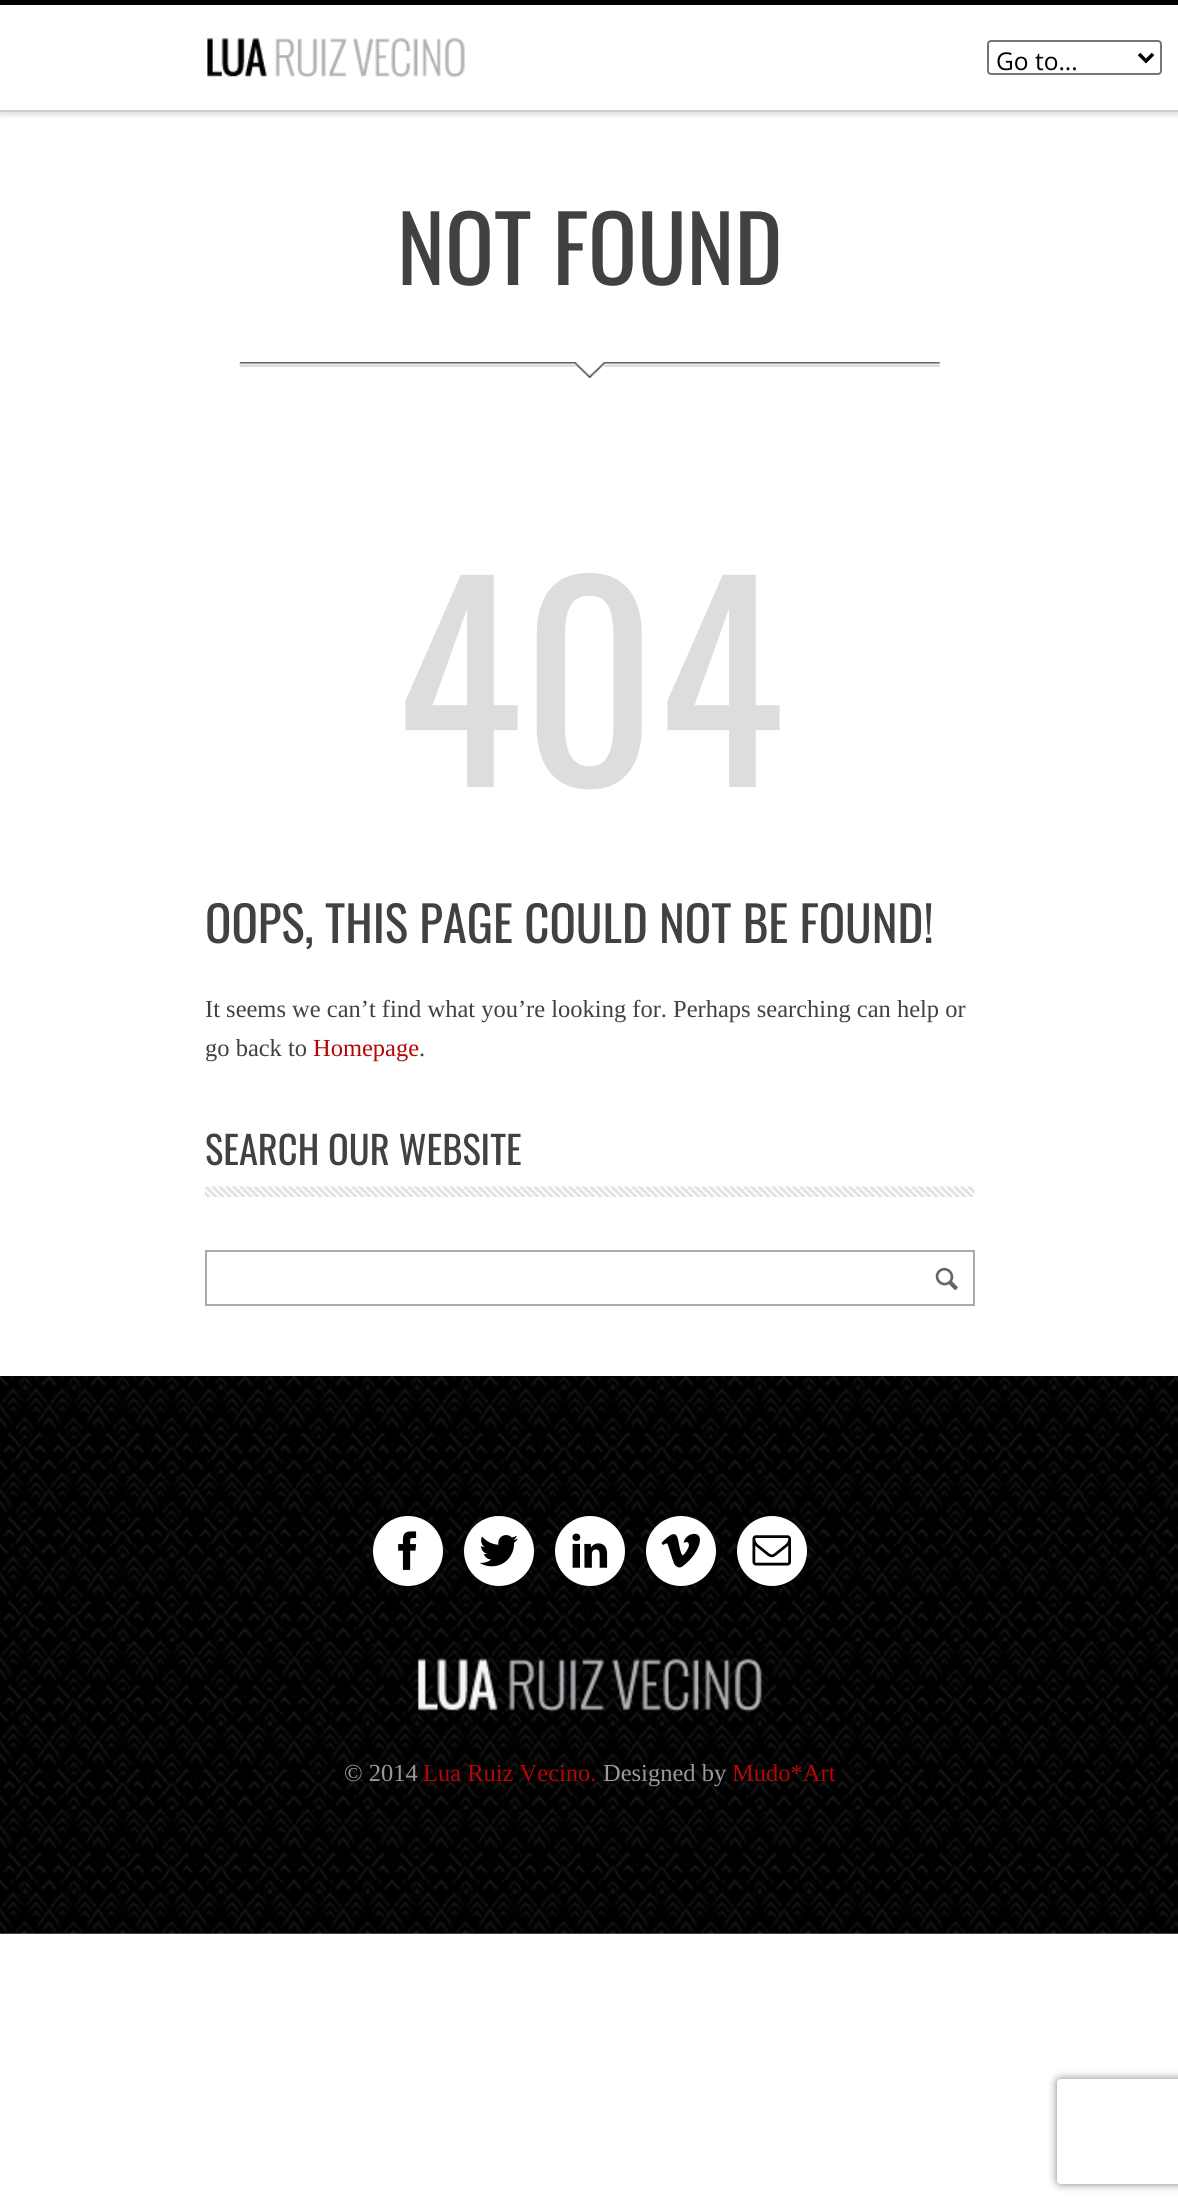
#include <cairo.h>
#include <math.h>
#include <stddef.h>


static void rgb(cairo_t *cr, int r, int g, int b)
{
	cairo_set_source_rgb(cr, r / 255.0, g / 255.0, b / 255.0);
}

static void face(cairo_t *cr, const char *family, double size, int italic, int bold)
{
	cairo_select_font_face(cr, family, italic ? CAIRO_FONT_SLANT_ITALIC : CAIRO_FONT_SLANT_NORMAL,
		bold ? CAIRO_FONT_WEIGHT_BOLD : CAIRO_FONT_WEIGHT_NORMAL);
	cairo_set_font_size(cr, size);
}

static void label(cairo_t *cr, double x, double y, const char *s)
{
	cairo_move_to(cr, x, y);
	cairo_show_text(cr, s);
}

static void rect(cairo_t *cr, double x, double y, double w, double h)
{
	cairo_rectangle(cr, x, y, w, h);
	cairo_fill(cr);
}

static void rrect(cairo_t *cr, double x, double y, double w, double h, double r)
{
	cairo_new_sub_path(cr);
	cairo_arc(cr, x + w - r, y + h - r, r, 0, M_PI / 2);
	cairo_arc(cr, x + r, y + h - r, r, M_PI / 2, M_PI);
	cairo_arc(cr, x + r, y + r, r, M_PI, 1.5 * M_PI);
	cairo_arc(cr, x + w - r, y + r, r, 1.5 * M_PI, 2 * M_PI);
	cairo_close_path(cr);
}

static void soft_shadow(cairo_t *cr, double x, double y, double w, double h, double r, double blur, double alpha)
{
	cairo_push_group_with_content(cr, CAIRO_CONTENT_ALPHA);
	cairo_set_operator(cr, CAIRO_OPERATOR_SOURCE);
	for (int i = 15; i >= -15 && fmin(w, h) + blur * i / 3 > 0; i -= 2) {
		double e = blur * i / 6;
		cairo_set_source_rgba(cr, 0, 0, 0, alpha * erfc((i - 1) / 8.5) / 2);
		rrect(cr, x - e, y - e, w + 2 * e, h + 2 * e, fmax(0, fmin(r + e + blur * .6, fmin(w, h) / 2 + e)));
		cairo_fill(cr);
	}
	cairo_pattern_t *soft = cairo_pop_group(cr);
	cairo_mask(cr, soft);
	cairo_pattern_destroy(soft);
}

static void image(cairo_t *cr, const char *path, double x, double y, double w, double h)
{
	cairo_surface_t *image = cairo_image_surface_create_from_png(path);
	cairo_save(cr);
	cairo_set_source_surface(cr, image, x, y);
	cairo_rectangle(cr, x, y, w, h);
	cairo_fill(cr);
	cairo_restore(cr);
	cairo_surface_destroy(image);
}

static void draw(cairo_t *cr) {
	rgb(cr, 255, 255, 255);
	cairo_paint(cr);
	cairo_save(cr);
	cairo_rectangle(cr, 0, 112, 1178, 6);
	cairo_clip(cr);
	rgb(cr, 0, 0, 0);
	soft_shadow(cr, 0, 4, 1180, 112, 0, 2, 0.1);
	cairo_restore(cr);
	rgb(cr, 0, 0, 0);
	rect(cr, 0, 0, 1178, 5);
	rgb(cr, 204, 204, 204);
	rect(cr, 0, 110, 1178, 2);
	image(cr, "image0.png", 207, 37, 258, 41);
	rrect(cr, 988, 41, 173, 33, 3);
	rgb(cr, 118, 118, 118);
	cairo_stroke(cr);
	cairo_new_path(cr);
	cairo_move_to(cr, 1139, 54);
	cairo_line_to(cr, 1146, 61);
	cairo_line_to(cr, 1153, 54);
	rgb(cr, 0, 0, 0);
	cairo_set_line_width(cr, 3.5);
	cairo_stroke(cr);
	face(cr, "Open Sans", 24.5, 0, 0);
	label(cr, 996, 70, "Go to...");
	image(cr, "image1.png", 239, 362, 701, 16);
	face(cr, "Oswald", 91, 0, 0);
	rgb(cr, 65, 65, 65);
	label(cr, 397, 285, "NOT FOUND");
	face(cr, "Oswald", 262, 0, 0);
	rgb(cr, 221, 221, 221);
	label(cr, 395, 787, "404");
	face(cr, "Oswald", 49, 0, 0);
	rgb(cr, 65, 65, 65);
	label(cr, 205, 943, "OOPS, THIS PAGE COULD NOT BE FOUND!");
	face(cr, "Liberation Serif", 24.5, 0, 0);
	label(cr, 205, 1017, "It seems we can’t find what you’re looking for. Perhaps searching can help or");
	label(cr, 205, 1056, "go back to");
	rgb(cr, 180, 6, 6);
	label(cr, 313, 1056, "Homepage");
	rgb(cr, 65, 65, 65);
	label(cr, 419, 1056, ".");
	face(cr, "Oswald", 38.5, 0, 0);
	label(cr, 205, 1165, "SEARCH OUR WEBSITE");
	image(cr, "image2.png", 204, 1186, 771, 11);
	cairo_rectangle(cr, 206, 1251, 768, 54);
	rgb(cr, 170, 170, 170);
	cairo_set_line_width(cr, 2);
	cairo_stroke(cr);
	image(cr, "image3.png", 935, 1267, 23, 23);
	image(cr, "image4.png", 0, 1376, 1178, 558);
	rgb(cr, 255, 255, 255);
	cairo_arc(cr, 408, 1551, 35, 0, 2 * M_PI);
	cairo_fill(cr);
	image(cr, "image5.png", 398, 1531, 19, 39);
	cairo_arc(cr, 499, 1551, 35, 0, 2 * M_PI);
	cairo_fill(cr);
	image(cr, "image6.png", 479, 1535, 39, 32);
	cairo_arc(cr, 590, 1551, 35, 0, 2 * M_PI);
	cairo_fill(cr);
	image(cr, "image7.png", 572, 1533, 36, 35);
	cairo_arc(cr, 681, 1551, 35, 0, 2 * M_PI);
	cairo_fill(cr);
	image(cr, "image8.png", 661, 1533, 39, 35);
	cairo_arc(cr, 772, 1551, 35, 0, 2 * M_PI);
	cairo_fill(cr);
	image(cr, "image9.png", 752, 1535, 39, 31);
	image(cr, "image10.png", 417, 1658, 345, 54);
	face(cr, "Liberation Serif", 24.5, 0, 0);
	rgb(cr, 154, 154, 154);
	label(cr, 344, 1781, "© 2014");
	rgb(cr, 180, 6, 6);
	label(cr, 423, 1781, "Lua Ruiz Vecino.");
	rgb(cr, 154, 154, 154);
	label(cr, 603, 1781, "Designed by");
	rgb(cr, 180, 6, 6);
	label(cr, 732, 1781, "Mudo*Art");
	cairo_save(cr);
	cairo_set_fill_rule(cr, CAIRO_FILL_RULE_EVEN_ODD);
	cairo_new_path(cr);
	cairo_move_to(cr, 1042, 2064);
	cairo_line_to(cr, 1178, 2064);
	cairo_line_to(cr, 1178, 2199);
	cairo_line_to(cr, 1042, 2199);
	cairo_close_path(cr);
	cairo_move_to(cr, 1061, 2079);
	cairo_line_to(cr, 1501, 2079);
	cairo_curve_to(cr, 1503, 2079, 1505, 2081, 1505, 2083);
	cairo_line_to(cr, 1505, 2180);
	cairo_curve_to(cr, 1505, 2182, 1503, 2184, 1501, 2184);
	cairo_line_to(cr, 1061, 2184);
	cairo_curve_to(cr, 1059, 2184, 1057, 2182, 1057, 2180);
	cairo_line_to(cr, 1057, 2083);
	cairo_curve_to(cr, 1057, 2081, 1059, 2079, 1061, 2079);
	cairo_close_path(cr);
	cairo_clip(cr);
	rgb(cr, 128, 128, 128);
	soft_shadow(cr, 1057, 2079, 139, 105, 4, 4.5, 1);
	cairo_restore(cr);
}

int main(void) {
	cairo_surface_t *surface = cairo_image_surface_create(CAIRO_FORMAT_RGB24, 1178, 2207);
	cairo_t *cr = cairo_create(surface);
	cairo_font_options_t *options = cairo_font_options_create();
	cairo_font_options_set_hint_metrics(options, CAIRO_HINT_METRICS_OFF);
	cairo_font_options_set_hint_style(options, CAIRO_HINT_STYLE_NONE);
	cairo_set_font_options(cr, options);
	cairo_set_miter_limit(cr, 4);
	draw(cr);
	cairo_surface_write_to_png(surface, "render.png");
	cairo_font_options_destroy(options);
	cairo_destroy(cr);
	cairo_surface_destroy(surface);
	return 0;
}
